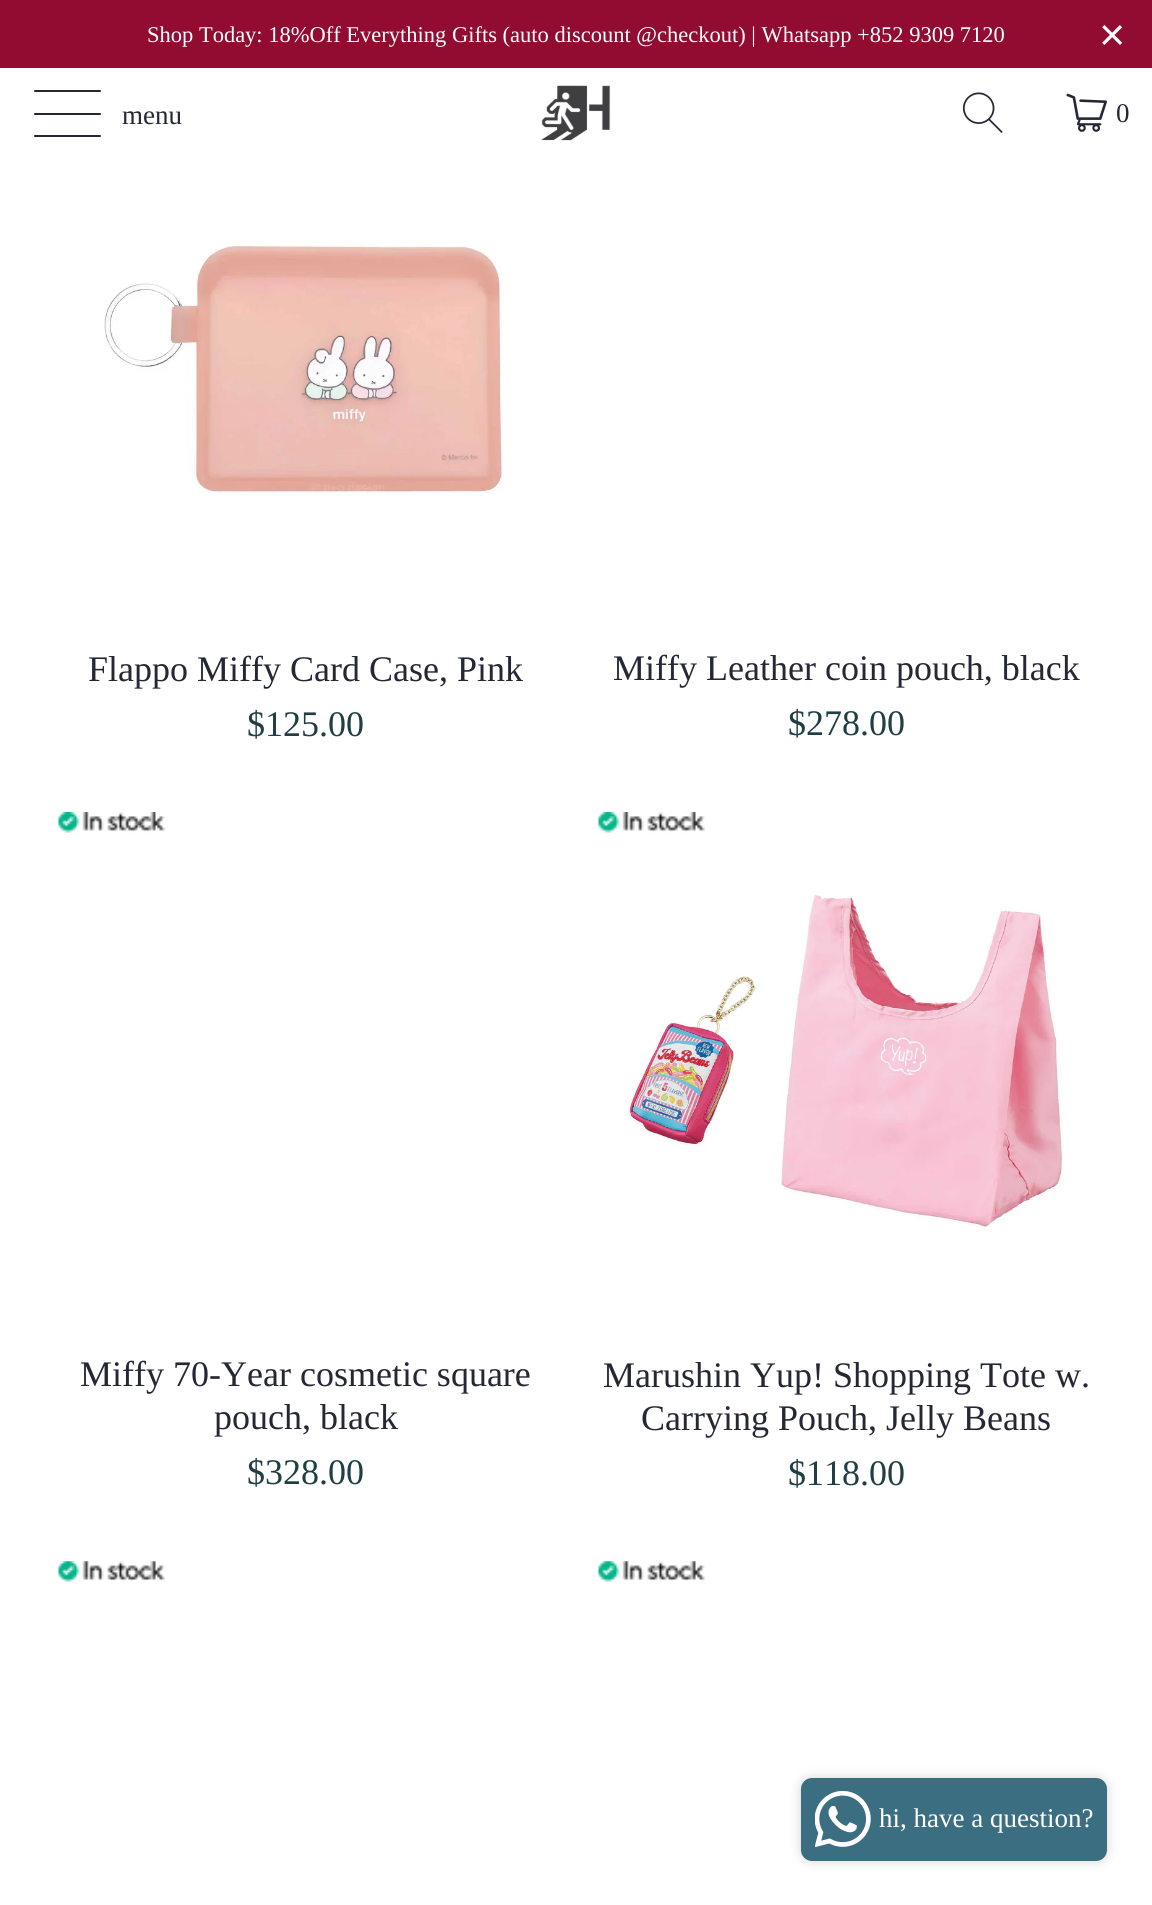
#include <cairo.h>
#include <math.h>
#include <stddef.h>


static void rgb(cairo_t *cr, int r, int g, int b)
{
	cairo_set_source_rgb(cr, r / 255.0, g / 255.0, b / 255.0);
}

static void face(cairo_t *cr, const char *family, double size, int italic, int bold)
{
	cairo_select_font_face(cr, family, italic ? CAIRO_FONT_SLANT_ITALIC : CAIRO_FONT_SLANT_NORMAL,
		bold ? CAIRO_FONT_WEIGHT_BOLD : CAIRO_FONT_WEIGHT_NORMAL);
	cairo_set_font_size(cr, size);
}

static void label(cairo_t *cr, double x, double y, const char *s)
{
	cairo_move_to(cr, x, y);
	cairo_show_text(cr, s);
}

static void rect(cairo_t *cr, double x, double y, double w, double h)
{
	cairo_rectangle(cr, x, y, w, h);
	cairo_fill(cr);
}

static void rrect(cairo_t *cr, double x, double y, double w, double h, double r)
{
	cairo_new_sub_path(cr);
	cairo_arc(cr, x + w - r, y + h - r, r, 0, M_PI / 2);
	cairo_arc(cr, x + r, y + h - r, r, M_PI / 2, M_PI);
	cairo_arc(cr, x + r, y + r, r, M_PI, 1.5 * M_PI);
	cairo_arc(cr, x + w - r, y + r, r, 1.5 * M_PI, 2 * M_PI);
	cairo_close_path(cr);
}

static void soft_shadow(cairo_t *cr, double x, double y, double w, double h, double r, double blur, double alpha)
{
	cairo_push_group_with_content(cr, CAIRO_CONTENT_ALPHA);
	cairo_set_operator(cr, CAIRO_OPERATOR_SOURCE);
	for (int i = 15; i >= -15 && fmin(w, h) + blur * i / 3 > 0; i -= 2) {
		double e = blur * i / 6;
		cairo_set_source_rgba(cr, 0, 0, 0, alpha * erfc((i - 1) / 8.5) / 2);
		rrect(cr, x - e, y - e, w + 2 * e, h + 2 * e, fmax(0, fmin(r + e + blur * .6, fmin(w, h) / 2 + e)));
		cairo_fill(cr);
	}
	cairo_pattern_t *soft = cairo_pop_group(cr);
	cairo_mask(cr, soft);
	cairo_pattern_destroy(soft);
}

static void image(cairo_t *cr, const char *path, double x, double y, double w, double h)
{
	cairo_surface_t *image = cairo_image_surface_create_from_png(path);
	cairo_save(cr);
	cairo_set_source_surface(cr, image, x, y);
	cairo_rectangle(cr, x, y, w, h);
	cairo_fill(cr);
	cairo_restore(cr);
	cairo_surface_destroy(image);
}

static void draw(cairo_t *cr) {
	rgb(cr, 255, 255, 255);
	cairo_paint(cr);
	rgb(cr, 146, 12, 49);
	rect(cr, 0, 0, 1152, 68);
	face(cr, "Liberation Serif", 22.5, 0, 0);
	rgb(cr, 255, 255, 255);
	label(cr, 147, 42, "Shop Today: 18%Off Everything Gifts (auto discount @checkout) | Whatsapp +852 9309 7120");
	face(cr, "Liberation Sans", 45, 0, 0);
	label(cr, 1099, 50, "×");
	rgb(cr, 37, 39, 53);
	rrect(cr, 34, 90, 67, 2, 1);
	cairo_fill(cr);
	rrect(cr, 34, 113, 67, 2, 1);
	cairo_fill(cr);
	rrect(cr, 34, 135, 67, 2, 1);
	cairo_fill(cr);
	face(cr, "Liberation Serif", 27, 0, 0);
	label(cr, 122, 124, "menu");
	image(cr, "image0.png", 541, 85, 70, 56);
	image(cr, "image1.png", 962, 92, 41, 41);
	image(cr, "image2.png", 1066, 93, 41, 39);
	label(cr, 1116, 122, "0");
	image(cr, "image3.png", 104, 245, 400, 249);
	face(cr, "Liberation Serif", 36, 0, 0);
	label(cr, 88, 681, "Flappo Miffy Card Case, Pink");
	rgb(cr, 32, 62, 68);
	label(cr, 247, 736, "$125.00");
	rgb(cr, 37, 39, 53);
	label(cr, 613, 680, "Miffy Leather coin pouch, black");
	rgb(cr, 32, 62, 68);
	label(cr, 788, 735, "$278.00");
	image(cr, "image4.png", 58, 812, 107, 21);
	rgb(cr, 37, 39, 53);
	label(cr, 80, 1386, "Miffy 70-Year cosmetic square");
	label(cr, 214, 1429, "pouch, black");
	rgb(cr, 32, 62, 68);
	label(cr, 247, 1484, "$328.00");
	image(cr, "image4.png", 598, 812, 107, 21);
	image(cr, "image5.png", 628, 891, 435, 336);
	rgb(cr, 37, 39, 53);
	label(cr, 603, 1387, "Marushin Yup! Shopping Tote w.");
	label(cr, 641, 1430, "Carrying Pouch, Jelly Beans");
	rgb(cr, 32, 62, 68);
	label(cr, 788, 1485, "$118.00");
	image(cr, "image6.png", 58, 1561, 107, 22);
	image(cr, "image6.png", 598, 1561, 107, 22);
	rgb(cr, 211, 211, 211);
	soft_shadow(cr, 801, 1778, 306, 83, 11, 5.5, 1);
	rgb(cr, 59, 110, 128);
	rrect(cr, 801, 1778, 306, 83, 11);
	cairo_fill(cr);
	image(cr, "image7.png", 815, 1791, 56, 56);
	face(cr, "Liberation Serif", 27, 0, 0);
	rgb(cr, 255, 255, 255);
	label(cr, 879, 1827, "hi, have a question?");
}

int main(void) {
	cairo_surface_t *surface = cairo_image_surface_create(CAIRO_FORMAT_RGB24, 1152, 1905);
	cairo_t *cr = cairo_create(surface);
	cairo_font_options_t *options = cairo_font_options_create();
	cairo_font_options_set_hint_metrics(options, CAIRO_HINT_METRICS_OFF);
	cairo_font_options_set_hint_style(options, CAIRO_HINT_STYLE_NONE);
	cairo_set_font_options(cr, options);
	cairo_set_miter_limit(cr, 4);
	draw(cr);
	cairo_surface_write_to_png(surface, "render.png");
	cairo_font_options_destroy(options);
	cairo_destroy(cr);
	cairo_surface_destroy(surface);
	return 0;
}
